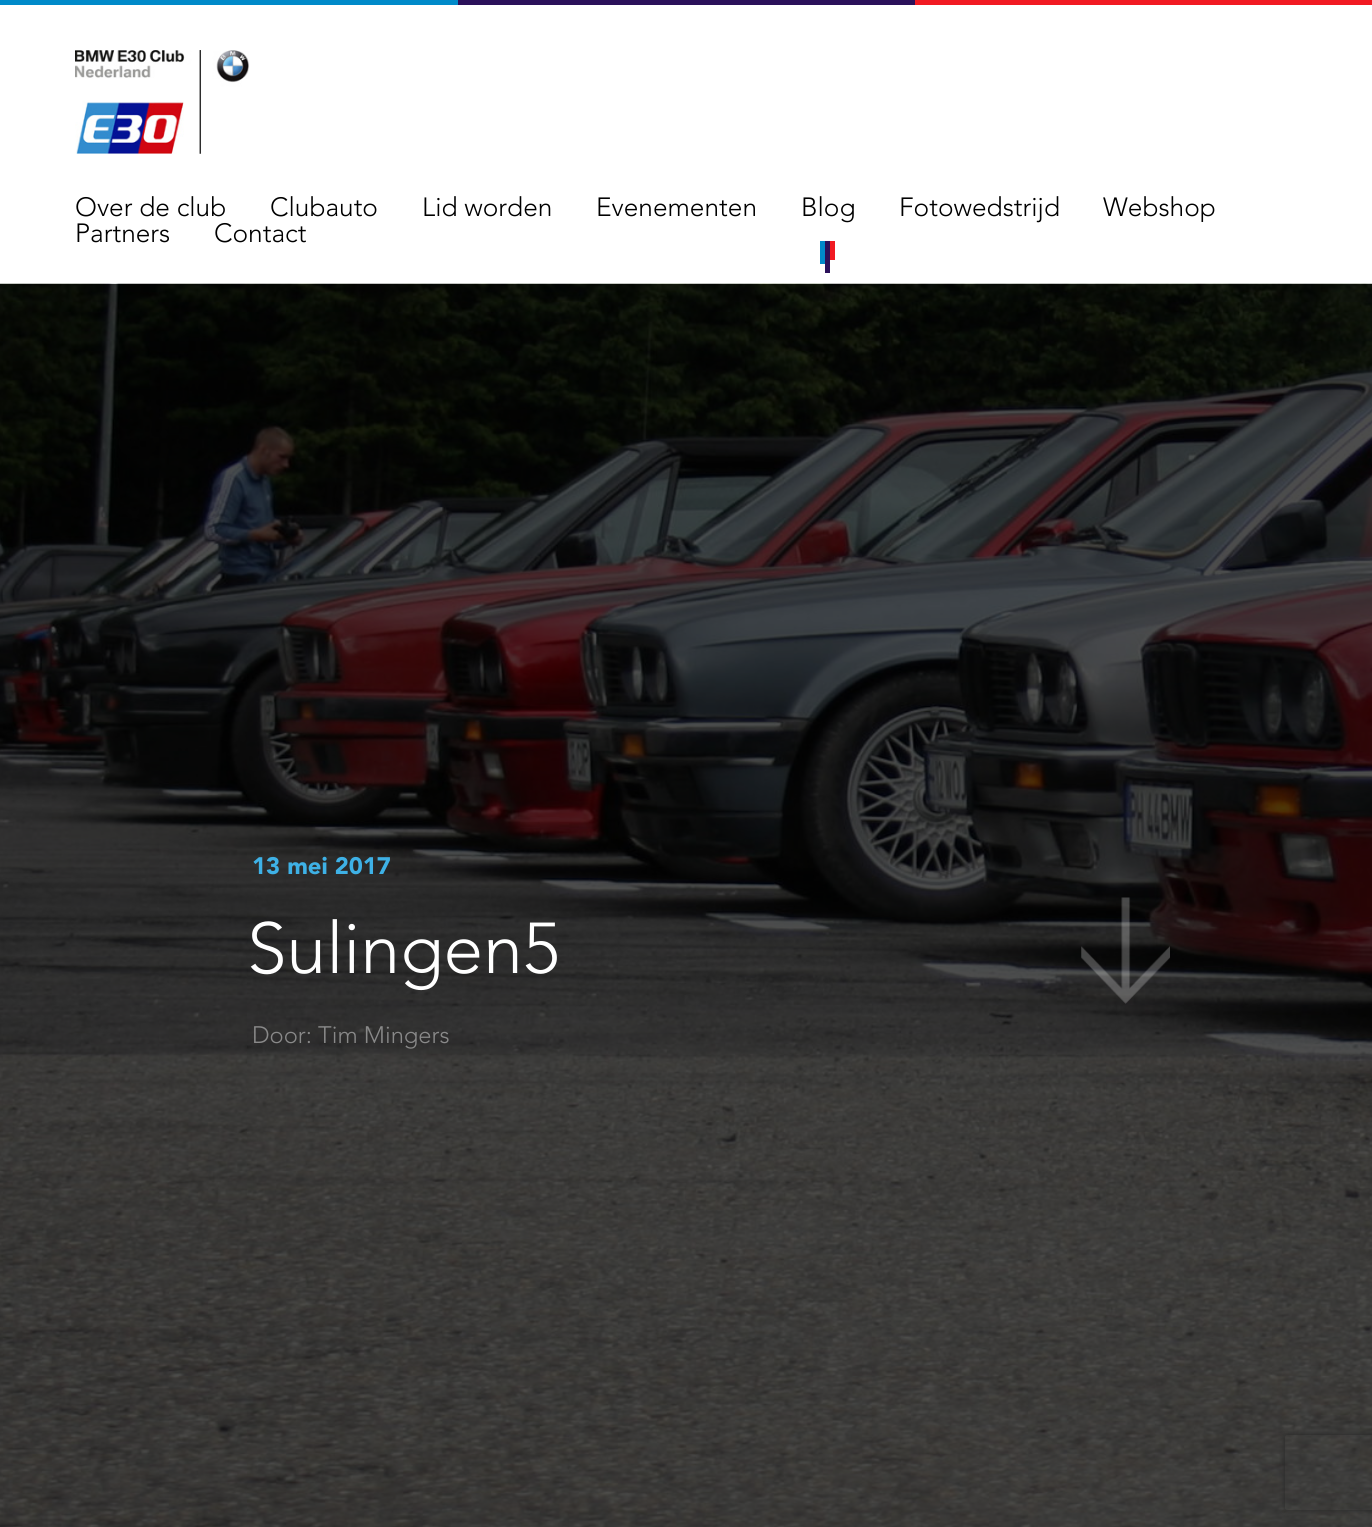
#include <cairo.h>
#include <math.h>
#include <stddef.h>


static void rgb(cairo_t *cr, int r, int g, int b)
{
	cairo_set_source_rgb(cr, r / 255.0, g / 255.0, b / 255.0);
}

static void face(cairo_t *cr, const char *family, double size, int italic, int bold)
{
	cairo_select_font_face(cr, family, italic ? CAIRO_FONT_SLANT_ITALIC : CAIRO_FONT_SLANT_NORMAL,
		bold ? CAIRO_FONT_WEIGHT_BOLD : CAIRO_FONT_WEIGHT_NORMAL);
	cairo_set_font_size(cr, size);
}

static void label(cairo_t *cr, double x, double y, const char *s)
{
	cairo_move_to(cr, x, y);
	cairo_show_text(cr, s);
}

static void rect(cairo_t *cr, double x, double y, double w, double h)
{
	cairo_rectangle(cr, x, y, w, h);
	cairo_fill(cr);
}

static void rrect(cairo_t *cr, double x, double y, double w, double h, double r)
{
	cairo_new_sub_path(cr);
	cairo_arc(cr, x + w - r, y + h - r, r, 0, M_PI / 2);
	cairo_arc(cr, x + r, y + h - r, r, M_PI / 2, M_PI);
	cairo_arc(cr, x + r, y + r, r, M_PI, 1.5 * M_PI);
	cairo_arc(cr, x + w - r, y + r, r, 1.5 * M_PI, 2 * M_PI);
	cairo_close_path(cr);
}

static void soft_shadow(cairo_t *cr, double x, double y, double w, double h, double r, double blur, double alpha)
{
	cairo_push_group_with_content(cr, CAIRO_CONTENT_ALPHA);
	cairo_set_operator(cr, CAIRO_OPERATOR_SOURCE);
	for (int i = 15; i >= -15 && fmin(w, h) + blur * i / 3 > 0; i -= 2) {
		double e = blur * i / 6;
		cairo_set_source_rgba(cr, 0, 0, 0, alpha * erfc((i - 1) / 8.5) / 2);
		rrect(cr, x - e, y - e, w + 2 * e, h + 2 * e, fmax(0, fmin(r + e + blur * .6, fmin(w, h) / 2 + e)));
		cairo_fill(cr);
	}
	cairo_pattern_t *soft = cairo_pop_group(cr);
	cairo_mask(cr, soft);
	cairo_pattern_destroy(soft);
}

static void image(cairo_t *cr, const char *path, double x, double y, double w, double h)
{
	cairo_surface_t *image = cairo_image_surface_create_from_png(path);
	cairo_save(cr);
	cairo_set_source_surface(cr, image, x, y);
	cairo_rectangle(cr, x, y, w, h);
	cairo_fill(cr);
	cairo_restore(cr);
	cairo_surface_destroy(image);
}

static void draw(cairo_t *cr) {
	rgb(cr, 255, 255, 255);
	cairo_paint(cr);
	rgb(cr, 43, 17, 90);
	rect(cr, 458, 0, 457, 5);
	rgb(cr, 0, 138, 201);
	rect(cr, 0, 0, 458, 5);
	rgb(cr, 241, 26, 34);
	rect(cr, 915, 0, 457, 5);
	image(cr, "image0.png", 75, 50, 175, 104);
	face(cr, "Avenir Light", 26.25, 0, 0);
	rgb(cr, 0, 0, 0);
	label(cr, 75, 216, "Over de club");
	label(cr, 270, 216, "Clubauto");
	label(cr, 422, 216, "Lid worden");
	label(cr, 596, 216, "Evenementen");
	label(cr, 801, 216, "Blog");
	rgb(cr, 0, 138, 201);
	rect(cr, 820, 241, 5, 23);
	rgb(cr, 241, 26, 34);
	rect(cr, 830, 241, 5, 19);
	rgb(cr, 43, 17, 90);
	rect(cr, 825, 241, 5, 32);
	rgb(cr, 0, 0, 0);
	label(cr, 899, 216, "Fotowedstrijd");
	label(cr, 1103, 216, "Webshop");
	label(cr, 75, 242, "Partners");
	label(cr, 214, 242, "Contact");
	image(cr, "image1.png", 0, 283, 1372, 1244);
	face(cr, "Avenir Black", 23.75, 0, 0);
	rgb(cr, 62, 177, 230);
	label(cr, 252, 874, "13 mei 2017");
	face(cr, "Avenir Light", 71.25, 0, 0);
	rgb(cr, 255, 255, 255);
	label(cr, 247, 973, "Sulingen5");
	image(cr, "image2.png", 1081, 897, 89, 107);
	face(cr, "Avenir Light", 23.75, 0, 0);
	rgb(cr, 137, 137, 137);
	label(cr, 252, 1043, "Door: Tim Mingers");
	cairo_save(cr);
	cairo_set_fill_rule(cr, CAIRO_FILL_RULE_EVEN_ODD);
	cairo_new_path(cr);
	cairo_move_to(cr, 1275, 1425);
	cairo_line_to(cr, 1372, 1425);
	cairo_line_to(cr, 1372, 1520);
	cairo_line_to(cr, 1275, 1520);
	cairo_close_path(cr);
	cairo_move_to(cr, 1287.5, 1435);
	cairo_line_to(cr, 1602.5, 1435);
	cairo_curve_to(cr, 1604, 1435, 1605, 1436, 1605, 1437.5);
	cairo_line_to(cr, 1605, 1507.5);
	cairo_curve_to(cr, 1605, 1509, 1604, 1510, 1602.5, 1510);
	cairo_line_to(cr, 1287.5, 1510);
	cairo_curve_to(cr, 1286, 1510, 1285, 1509, 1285, 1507.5);
	cairo_line_to(cr, 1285, 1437.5);
	cairo_curve_to(cr, 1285, 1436, 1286, 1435, 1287.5, 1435);
	cairo_close_path(cr);
	cairo_clip(cr);
	rgb(cr, 38, 38, 38);
	soft_shadow(cr, 1285, 1435, 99, 75, 2.5, 3, 1);
	cairo_restore(cr);
}

int main(void) {
	cairo_surface_t *surface = cairo_image_surface_create(CAIRO_FORMAT_RGB24, 1372, 1527);
	cairo_t *cr = cairo_create(surface);
	cairo_font_options_t *options = cairo_font_options_create();
	cairo_font_options_set_hint_metrics(options, CAIRO_HINT_METRICS_OFF);
	cairo_font_options_set_hint_style(options, CAIRO_HINT_STYLE_NONE);
	cairo_set_font_options(cr, options);
	cairo_set_miter_limit(cr, 4);
	draw(cr);
	cairo_surface_write_to_png(surface, "render.png");
	cairo_font_options_destroy(options);
	cairo_destroy(cr);
	cairo_surface_destroy(surface);
	return 0;
}
